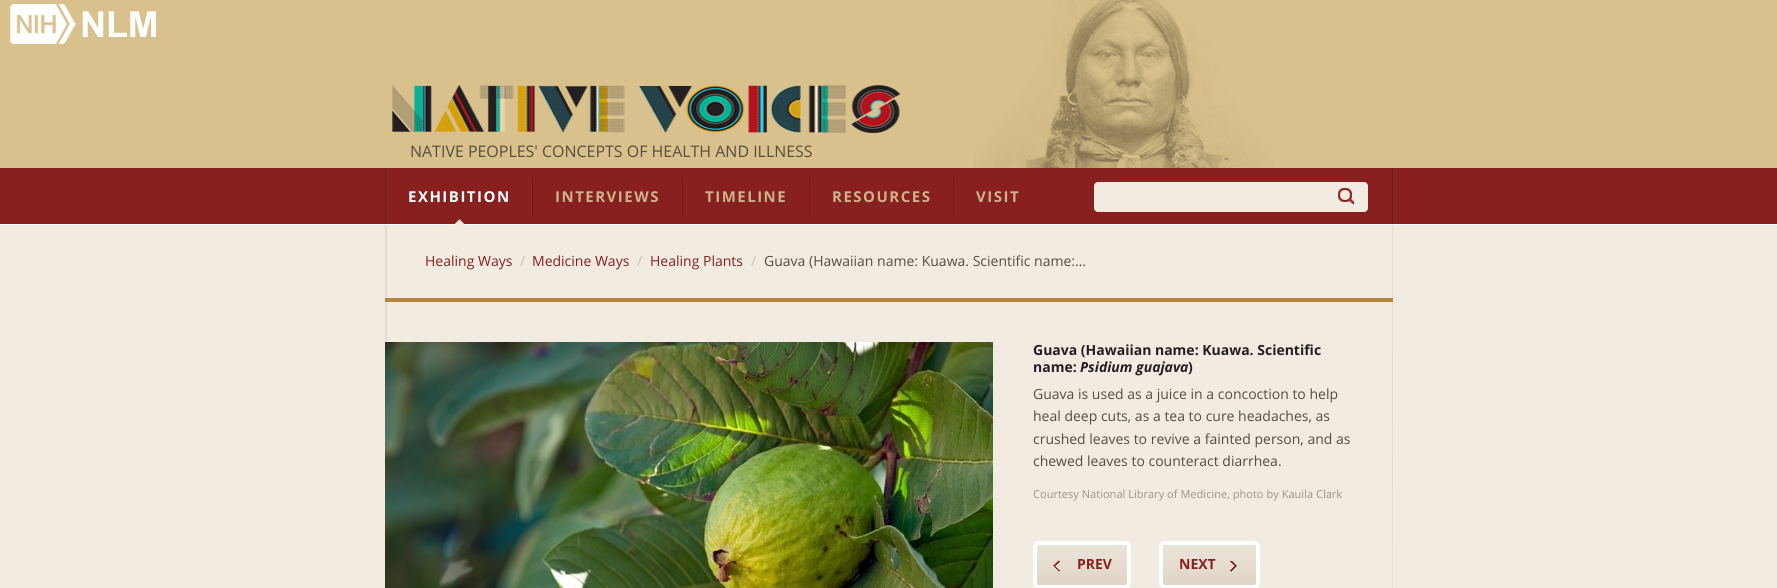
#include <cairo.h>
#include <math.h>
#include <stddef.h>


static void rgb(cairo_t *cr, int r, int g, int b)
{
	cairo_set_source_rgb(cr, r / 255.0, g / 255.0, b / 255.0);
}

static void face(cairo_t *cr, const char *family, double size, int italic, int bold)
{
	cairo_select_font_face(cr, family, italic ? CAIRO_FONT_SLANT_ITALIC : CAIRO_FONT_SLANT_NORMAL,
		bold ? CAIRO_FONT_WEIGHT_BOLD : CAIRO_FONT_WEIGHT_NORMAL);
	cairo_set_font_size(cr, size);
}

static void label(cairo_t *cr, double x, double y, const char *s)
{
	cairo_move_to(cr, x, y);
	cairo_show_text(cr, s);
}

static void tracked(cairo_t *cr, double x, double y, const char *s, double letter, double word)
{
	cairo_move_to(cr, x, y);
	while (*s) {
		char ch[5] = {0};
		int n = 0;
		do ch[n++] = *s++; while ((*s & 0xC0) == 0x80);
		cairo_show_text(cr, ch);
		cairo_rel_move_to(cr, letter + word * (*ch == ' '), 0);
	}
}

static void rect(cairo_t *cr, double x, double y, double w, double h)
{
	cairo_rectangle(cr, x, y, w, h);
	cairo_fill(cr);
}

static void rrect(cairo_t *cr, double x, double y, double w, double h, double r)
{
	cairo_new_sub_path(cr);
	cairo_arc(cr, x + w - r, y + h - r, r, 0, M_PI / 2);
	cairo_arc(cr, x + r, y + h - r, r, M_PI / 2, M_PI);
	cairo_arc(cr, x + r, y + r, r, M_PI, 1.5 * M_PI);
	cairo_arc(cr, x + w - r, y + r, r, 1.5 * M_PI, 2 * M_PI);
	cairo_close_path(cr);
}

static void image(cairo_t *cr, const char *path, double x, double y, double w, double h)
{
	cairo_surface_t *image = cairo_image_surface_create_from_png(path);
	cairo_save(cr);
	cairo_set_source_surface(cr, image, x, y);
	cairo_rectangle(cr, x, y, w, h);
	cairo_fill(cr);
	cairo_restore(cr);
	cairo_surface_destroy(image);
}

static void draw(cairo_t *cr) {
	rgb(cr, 241, 235, 226);
	cairo_paint(cr);
	rgb(cr, 216, 193, 141);
	rect(cr, 0, 0, 1777, 168);
	image(cr, "image0.png", 10, 4, 146, 40);
	image(cr, "image1.png", 973, 0, 302, 168);
	image(cr, "image2.png", 392, 85, 508, 48);
	face(cr, "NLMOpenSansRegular", 15.95, 0, 0);
	rgb(cr, 87, 76, 61);
	label(cr, 410, 157, "NATIVE PEOPLES' CONCEPTS OF HEALTH AND ILLNESS");
	rgb(cr, 135, 32, 30);
	rect(cr, 0, 168, 1777, 56);
	rgb(cr, 255, 255, 255);
	rect(cr, 0, 224, 1777, 1);
	rgb(cr, 114, 24, 22);
	rect(cr, 1392, 168, 1, 56);
	rect(cr, 385, 168, 1, 56);
	image(cr, "image3.png", 454, 219, 11, 6);
	rect(cr, 532, 178, 1, 38);
	face(cr, "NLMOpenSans", 15, 0, 1);
	rgb(cr, 255, 255, 255);
	tracked(cr, 408, 202, "EXHIBITION", 1.5, 0);
	rgb(cr, 114, 24, 22);
	rect(cr, 682, 178, 1, 38);
	rgb(cr, 206, 178, 140);
	tracked(cr, 555, 202, "INTERVIEWS", 1.5, 0);
	rgb(cr, 114, 24, 22);
	rect(cr, 809, 178, 1, 38);
	rgb(cr, 206, 178, 140);
	tracked(cr, 705, 202, "TIMELINE", 1.5, 0);
	rgb(cr, 114, 24, 22);
	rect(cr, 953, 178, 1, 38);
	rgb(cr, 206, 178, 140);
	tracked(cr, 832, 202, "RESOURCES", 1.5, 0);
	tracked(cr, 976, 202, "VISIT", 1.5, 0);
	rgb(cr, 241, 235, 226);
	rrect(cr, 1094.5, 182.5, 273, 29, 3.5);
	cairo_fill_preserve(cr);
	cairo_set_line_width(cr, 1);
	cairo_stroke(cr);
	image(cr, "image4.png", 1338, 188, 17, 17);
	image(cr, "image5.png", 385, 225, 2, 117);
	image(cr, "image6.png", 1392, 225, 1, 363);
	rgb(cr, 181, 134, 62);
	rect(cr, 385, 298, 1008, 4);
	face(cr, "NLMOpenSansRegular", 14, 0, 0);
	rgb(cr, 135, 32, 30);
	label(cr, 425, 266, "Healing Ways");
	rgb(cr, 200, 193, 180);
	label(cr, 520, 266, "/");
	rgb(cr, 135, 32, 30);
	label(cr, 532, 266, "Medicine Ways");
	rgb(cr, 200, 193, 180);
	label(cr, 637, 266, "/");
	rgb(cr, 135, 32, 30);
	label(cr, 650, 266, "Healing Plants");
	rgb(cr, 200, 193, 180);
	label(cr, 751, 266, "/");
	rgb(cr, 87, 76, 61);
	label(cr, 764, 266, "Guava (Hawaiian name: Kuawa. Scientific name:…");
	image(cr, "image7.png", 385, 342, 608, 246);
	face(cr, "NLMOpenSans", 14, 0, 1);
	rgb(cr, 35, 31, 32);
	label(cr, 1033, 355, "Guava (Hawaiian name: Kuawa. Scientific");
	label(cr, 1033, 372, "name:");
	face(cr, "NLMOpenSans", 14, 1, 1);
	label(cr, 1080, 372, "Psidium guajava");
	face(cr, "NLMOpenSans", 14, 0, 1);
	label(cr, 1188, 372, ")");
	face(cr, "NLMOpenSansRegular", 14, 0, 0);
	rgb(cr, 87, 76, 61);
	label(cr, 1033, 399, "Guava is used as a juice in a concoction to help");
	label(cr, 1033, 421, "heal deep cuts, as a tea to cure headaches, as");
	label(cr, 1033, 444, "crushed leaves to revive a fainted person, and as");
	label(cr, 1033, 466, "chewed leaves to counteract diarrhea.");
	face(cr, "NLMOpenSansRegular", 11.05, 0, 0);
	rgb(cr, 156, 147, 135);
	label(cr, 1033, 498, "Courtesy National Library of Medicine, photo by Kauila Clark");
	image(cr, "image8.png", 1033, 545, 98, 40);
	rrect(cr, 1035, 543, 94, 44, 4);
	rgb(cr, 255, 255, 255);
	cairo_set_line_width(cr, 4);
	cairo_stroke(cr);
	image(cr, "image9.png", 1053, 560, 7, 11);
	face(cr, "NLMOpenSans", 14, 0, 1);
	rgb(cr, 135, 32, 30);
	label(cr, 1077, 569, "PREV");
	image(cr, "image10.png", 1159, 545, 101, 40);
	rrect(cr, 1161, 543, 97, 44, 4);
	rgb(cr, 255, 255, 255);
	cairo_stroke(cr);
	rgb(cr, 135, 32, 30);
	label(cr, 1179, 569, "NEXT");
	image(cr, "image11.png", 1230, 561, 7, 11);
}

int main(void) {
	cairo_surface_t *surface = cairo_image_surface_create(CAIRO_FORMAT_RGB24, 1777, 588);
	cairo_t *cr = cairo_create(surface);
	cairo_font_options_t *options = cairo_font_options_create();
	cairo_font_options_set_hint_metrics(options, CAIRO_HINT_METRICS_OFF);
	cairo_font_options_set_hint_style(options, CAIRO_HINT_STYLE_NONE);
	cairo_set_font_options(cr, options);
	cairo_set_miter_limit(cr, 4);
	draw(cr);
	cairo_surface_write_to_png(surface, "render.png");
	cairo_font_options_destroy(options);
	cairo_destroy(cr);
	cairo_surface_destroy(surface);
	return 0;
}
